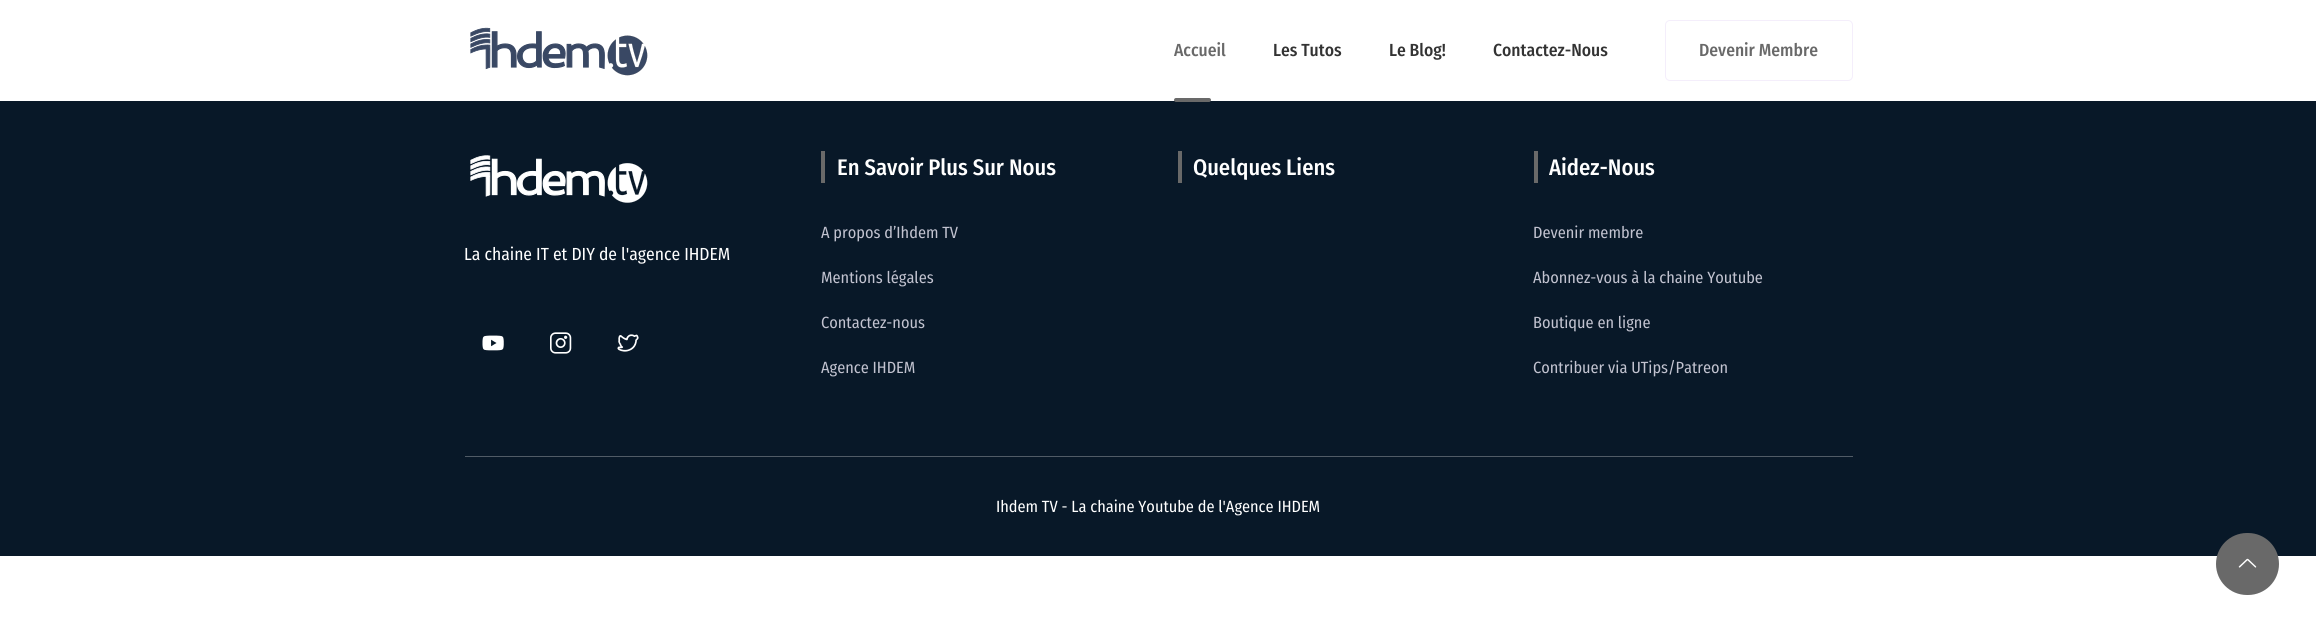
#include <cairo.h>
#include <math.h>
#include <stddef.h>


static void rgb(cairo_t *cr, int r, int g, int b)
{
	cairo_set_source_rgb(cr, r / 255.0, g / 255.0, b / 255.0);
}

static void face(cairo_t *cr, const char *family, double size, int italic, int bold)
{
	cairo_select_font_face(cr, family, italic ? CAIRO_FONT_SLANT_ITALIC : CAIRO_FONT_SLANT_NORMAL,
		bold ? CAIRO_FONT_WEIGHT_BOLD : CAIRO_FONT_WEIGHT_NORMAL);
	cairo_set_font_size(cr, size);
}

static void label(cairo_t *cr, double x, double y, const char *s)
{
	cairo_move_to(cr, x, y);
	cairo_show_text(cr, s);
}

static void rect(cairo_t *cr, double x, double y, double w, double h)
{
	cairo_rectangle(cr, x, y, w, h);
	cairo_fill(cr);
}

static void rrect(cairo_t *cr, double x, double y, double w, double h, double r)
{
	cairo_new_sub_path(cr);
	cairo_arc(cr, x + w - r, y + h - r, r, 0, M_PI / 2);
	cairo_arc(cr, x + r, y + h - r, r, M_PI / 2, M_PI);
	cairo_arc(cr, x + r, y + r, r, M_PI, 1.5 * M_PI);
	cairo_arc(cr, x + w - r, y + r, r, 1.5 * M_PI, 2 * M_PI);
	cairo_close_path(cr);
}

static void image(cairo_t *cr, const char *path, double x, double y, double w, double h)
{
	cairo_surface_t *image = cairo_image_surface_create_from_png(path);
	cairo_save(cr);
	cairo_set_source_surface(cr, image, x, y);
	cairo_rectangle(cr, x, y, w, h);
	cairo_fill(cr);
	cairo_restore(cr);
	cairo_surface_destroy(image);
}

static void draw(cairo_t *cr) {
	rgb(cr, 255, 255, 255);
	cairo_paint(cr);
	image(cr, "image0.png", 470, 27, 178, 49);
	face(cr, "Fira Sans Condensed Medium", 17.5, 0, 0);
	rgb(cr, 105, 105, 105);
	label(cr, 1174, 56, "Accueil");
	rgb(cr, 8, 24, 40);
	rect(cr, 0, 101, 2316, 455);
	rgb(cr, 105, 105, 105);
	rrect(cr, 1174, 98, 37, 4, 2);
	cairo_fill(cr);
	rgb(cr, 51, 51, 51);
	label(cr, 1273, 56, "Les Tutos");
	label(cr, 1389, 56, "Le Blog!");
	label(cr, 1493, 56, "Contactez-Nous");
	rrect(cr, 1665.5, 20.5, 187, 60, 4.5);
	rgb(cr, 244, 238, 251);
	cairo_set_line_width(cr, 1);
	cairo_stroke(cr);
	rgb(cr, 105, 105, 105);
	label(cr, 1699, 56, "Devenir Membre");
	image(cr, "image1.png", 470, 155, 178, 48);
	face(cr, "Fira Sans Condensed", 17.5, 0, 0);
	rgb(cr, 255, 255, 255);
	label(cr, 464, 260, "La chaine IT et DIY de l'agence IHDEM");
	image(cr, "image2.png", 482, 335, 22, 16);
	image(cr, "image3.png", 550, 332, 22, 22);
	image(cr, "image4.png", 617, 334, 22, 18);
	rgb(cr, 105, 105, 105);
	rect(cr, 821, 151, 4, 32);
	face(cr, "Fira Sans Condensed Medium", 22.5, 0, 0);
	rgb(cr, 255, 255, 255);
	label(cr, 837, 175, "En Savoir Plus Sur Nous");
	face(cr, "Fira Sans Condensed", 16.25, 0, 0);
	rgb(cr, 194, 195, 208);
	label(cr, 821, 238, "A propos d’Ihdem TV");
	label(cr, 821, 283, "Mentions légales");
	label(cr, 821, 328, "Contactez-nous");
	label(cr, 821, 373, "Agence IHDEM");
	rgb(cr, 105, 105, 105);
	rect(cr, 1178, 151, 4, 32);
	face(cr, "Fira Sans Condensed Medium", 22.5, 0, 0);
	rgb(cr, 255, 255, 255);
	label(cr, 1193, 175, "Quelques Liens");
	rgb(cr, 105, 105, 105);
	rect(cr, 1534, 151, 4, 32);
	rgb(cr, 255, 255, 255);
	label(cr, 1549, 175, "Aidez-Nous");
	face(cr, "Fira Sans Condensed", 16.25, 0, 0);
	rgb(cr, 194, 195, 208);
	label(cr, 1533, 238, "Devenir membre");
	label(cr, 1533, 283, "Abonnez-vous à la chaine Youtube");
	label(cr, 1533, 328, "Boutique en ligne");
	label(cr, 1533, 373, "Contribuer via UTips/Patreon");
	rgb(cr, 80, 91, 102);
	rect(cr, 465, 456, 1388, 1);
	rgb(cr, 255, 255, 255);
	label(cr, 996, 512, "Ihdem TV - La chaine Youtube de l'Agence IHDEM");
	rgb(cr, 105, 105, 105);
	rrect(cr, 2216, 533, 63, 62, 31);
	cairo_fill(cr);
	image(cr, "image5.png", 2238, 558, 19, 10);
}

int main(void) {
	cairo_surface_t *surface = cairo_image_surface_create(CAIRO_FORMAT_RGB24, 2316, 632);
	cairo_t *cr = cairo_create(surface);
	cairo_font_options_t *options = cairo_font_options_create();
	cairo_font_options_set_hint_metrics(options, CAIRO_HINT_METRICS_OFF);
	cairo_font_options_set_hint_style(options, CAIRO_HINT_STYLE_NONE);
	cairo_set_font_options(cr, options);
	cairo_set_miter_limit(cr, 4);
	draw(cr);
	cairo_surface_write_to_png(surface, "render.png");
	cairo_font_options_destroy(options);
	cairo_destroy(cr);
	cairo_surface_destroy(surface);
	return 0;
}
